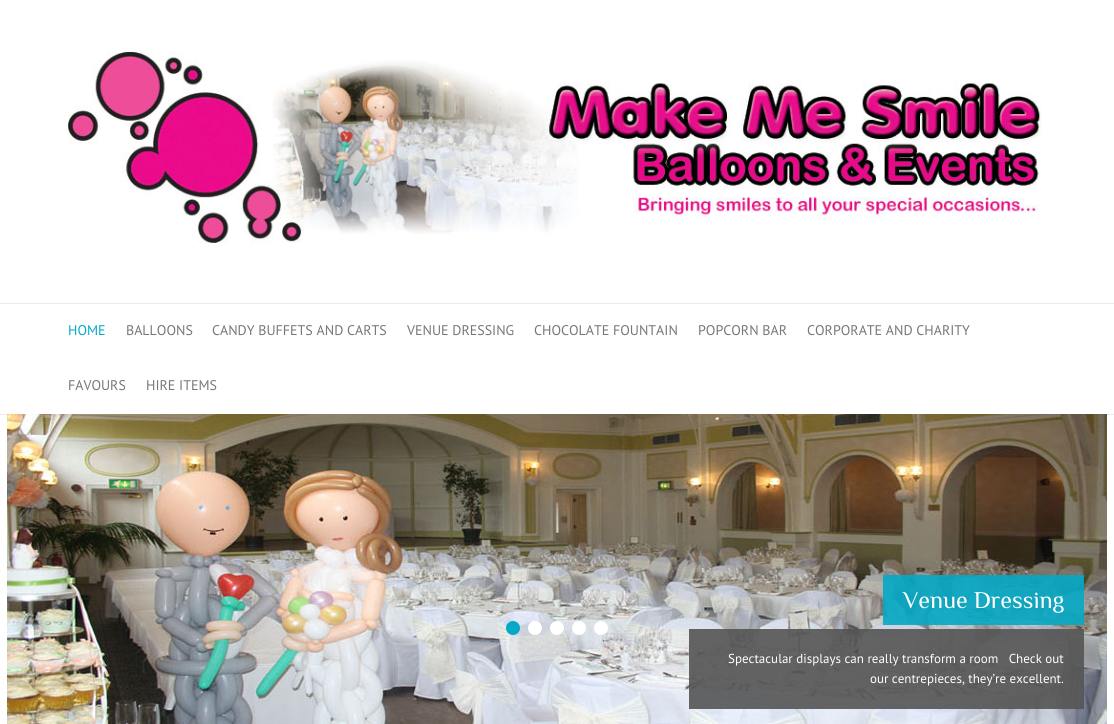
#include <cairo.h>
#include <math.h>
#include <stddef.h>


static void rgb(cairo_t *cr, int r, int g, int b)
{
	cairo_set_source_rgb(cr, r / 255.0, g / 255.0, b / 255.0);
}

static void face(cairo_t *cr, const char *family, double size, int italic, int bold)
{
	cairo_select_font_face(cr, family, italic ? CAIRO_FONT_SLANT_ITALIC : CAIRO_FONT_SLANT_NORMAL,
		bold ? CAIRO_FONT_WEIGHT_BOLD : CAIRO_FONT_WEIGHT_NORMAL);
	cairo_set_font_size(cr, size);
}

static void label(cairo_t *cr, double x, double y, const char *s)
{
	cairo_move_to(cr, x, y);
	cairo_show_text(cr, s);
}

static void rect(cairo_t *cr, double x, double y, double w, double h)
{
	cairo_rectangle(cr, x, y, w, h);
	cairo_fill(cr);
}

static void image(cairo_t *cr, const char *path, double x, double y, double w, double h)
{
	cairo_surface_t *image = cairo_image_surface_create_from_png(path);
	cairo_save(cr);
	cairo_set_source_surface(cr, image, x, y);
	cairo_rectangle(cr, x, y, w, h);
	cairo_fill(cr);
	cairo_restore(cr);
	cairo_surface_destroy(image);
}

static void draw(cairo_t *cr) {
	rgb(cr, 255, 255, 255);
	cairo_paint(cr);
	image(cr, "image0.png", 68, 52, 974, 191);
	rgb(cr, 234, 234, 234);
	rect(cr, 0, 303, 1114, 1);
	rect(cr, 0, 414, 1114, 1);
	face(cr, "PT Sans", 14, 0, 0);
	rgb(cr, 5, 169, 197);
	label(cr, 68, 335, "HOME");
	rgb(cr, 119, 119, 119);
	label(cr, 126, 335, "BALLOONS");
	label(cr, 212, 335, "CANDY BUFFETS AND CARTS");
	label(cr, 407, 335, "VENUE DRESSING");
	label(cr, 534, 335, "CHOCOLATE FOUNTAIN");
	label(cr, 698, 335, "POPCORN BAR");
	label(cr, 807, 335, "CORPORATE AND CHARITY");
	label(cr, 68, 390, "FAVOURS");
	label(cr, 146, 390, "HIRE ITEMS");
	image(cr, "image1.png", 7, 414, 1100, 310);
	rgb(cr, 5, 169, 197);
	cairo_arc(cr, 513, 628, 7, 0, 2 * M_PI);
	cairo_fill(cr);
	rgb(cr, 255, 255, 255);
	cairo_arc(cr, 535, 628, 7, 0, 2 * M_PI);
	cairo_fill(cr);
	cairo_arc(cr, 557, 628, 7, 0, 2 * M_PI);
	cairo_fill(cr);
	cairo_arc(cr, 579, 628, 7, 0, 2 * M_PI);
	cairo_fill(cr);
	cairo_arc(cr, 601, 628, 7, 0, 2 * M_PI);
	cairo_fill(cr);
	cairo_set_source_rgba(cr, 0.02, 0.663, 0.773, 0.9);
	rect(cr, 883, 575, 201, 50);
	face(cr, "Philosopher", 24, 0, 0);
	rgb(cr, 255, 255, 255);
	label(cr, 903, 608, "Venue Dressing");
	cairo_set_source_rgba(cr, 0.333, 0.333, 0.333, 0.9);
	rect(cr, 689, 629, 395, 80);
	face(cr, "PT Sans", 13, 0, 0);
	rgb(cr, 255, 255, 255);
	label(cr, 728, 663, "Spectacular displays can really transform a room   Check out");
	label(cr, 870, 683, "our centrepieces, they’re excellent.");
}

int main(void) {
	cairo_surface_t *surface = cairo_image_surface_create(CAIRO_FORMAT_RGB24, 1114, 724);
	cairo_t *cr = cairo_create(surface);
	cairo_font_options_t *options = cairo_font_options_create();
	cairo_font_options_set_hint_metrics(options, CAIRO_HINT_METRICS_OFF);
	cairo_font_options_set_hint_style(options, CAIRO_HINT_STYLE_NONE);
	cairo_set_font_options(cr, options);
	cairo_set_miter_limit(cr, 4);
	draw(cr);
	cairo_surface_write_to_png(surface, "render.png");
	cairo_font_options_destroy(options);
	cairo_destroy(cr);
	cairo_surface_destroy(surface);
	return 0;
}
